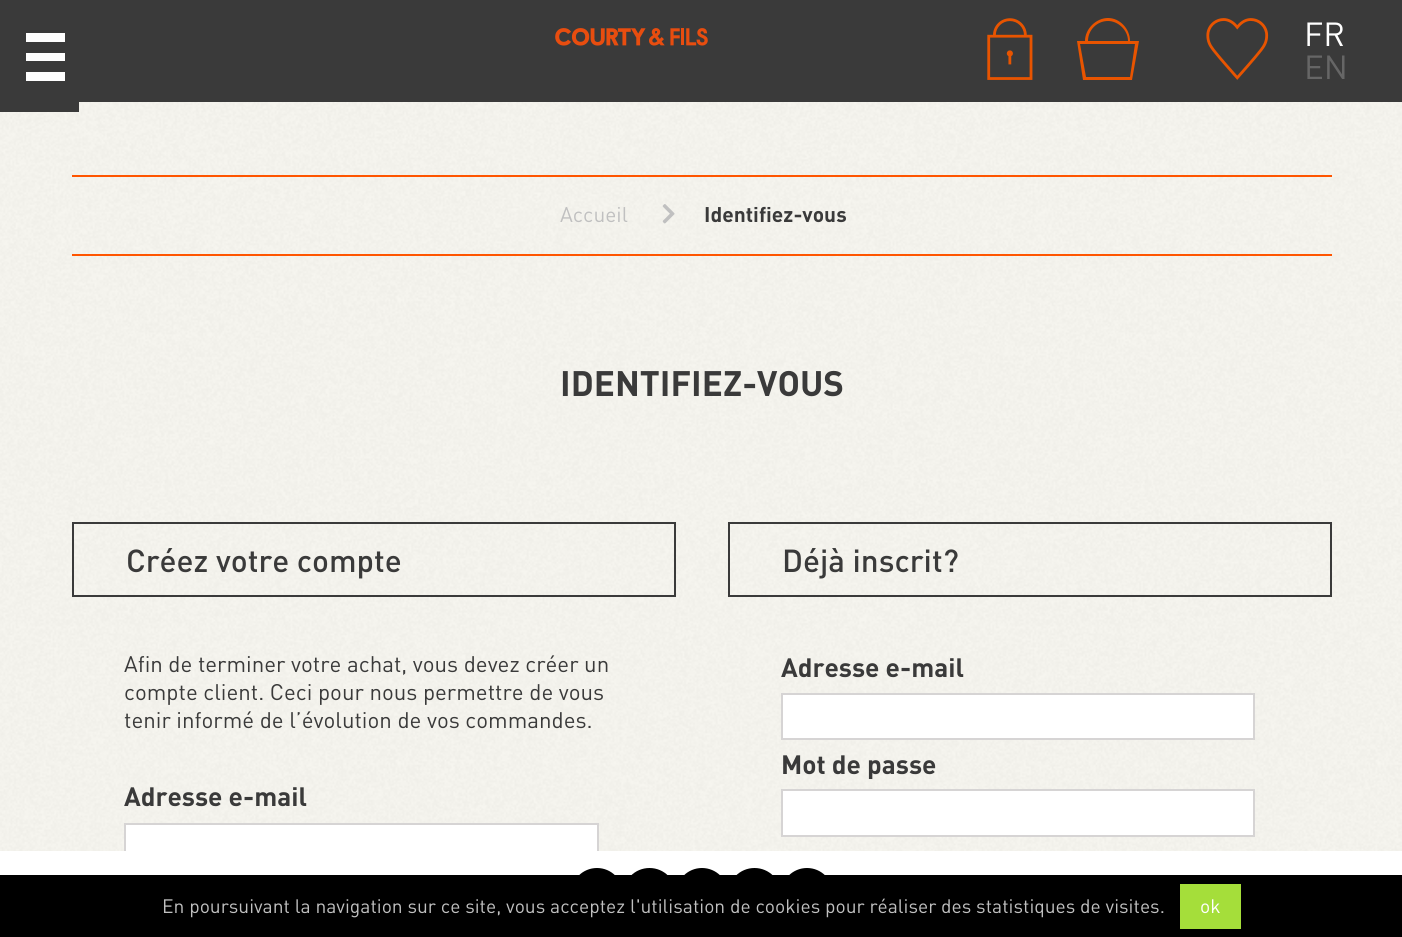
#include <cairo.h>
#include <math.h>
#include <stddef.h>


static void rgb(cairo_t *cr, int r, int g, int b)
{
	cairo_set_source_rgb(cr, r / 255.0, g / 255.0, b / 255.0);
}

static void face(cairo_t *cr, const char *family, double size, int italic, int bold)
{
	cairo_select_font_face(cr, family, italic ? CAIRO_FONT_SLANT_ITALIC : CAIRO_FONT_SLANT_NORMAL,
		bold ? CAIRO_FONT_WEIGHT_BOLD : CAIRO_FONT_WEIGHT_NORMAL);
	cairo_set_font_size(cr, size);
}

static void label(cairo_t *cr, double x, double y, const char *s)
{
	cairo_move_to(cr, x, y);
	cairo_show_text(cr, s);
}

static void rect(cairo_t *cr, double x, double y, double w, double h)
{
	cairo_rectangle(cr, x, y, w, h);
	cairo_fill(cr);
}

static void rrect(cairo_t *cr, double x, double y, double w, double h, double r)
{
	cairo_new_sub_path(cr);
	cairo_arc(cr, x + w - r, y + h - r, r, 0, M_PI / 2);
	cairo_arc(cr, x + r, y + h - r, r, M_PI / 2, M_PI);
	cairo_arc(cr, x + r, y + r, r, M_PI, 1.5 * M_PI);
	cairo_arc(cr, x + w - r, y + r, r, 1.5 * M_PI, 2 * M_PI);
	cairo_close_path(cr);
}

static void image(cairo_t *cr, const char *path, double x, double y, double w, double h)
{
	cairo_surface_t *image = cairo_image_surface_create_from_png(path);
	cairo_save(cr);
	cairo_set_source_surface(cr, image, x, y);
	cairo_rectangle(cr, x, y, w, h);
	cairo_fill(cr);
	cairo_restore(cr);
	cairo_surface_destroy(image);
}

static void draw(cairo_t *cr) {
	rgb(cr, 255, 255, 255);
	cairo_paint(cr);
	image(cr, "image0.png", 0, 102, 1402, 749);
	rgb(cr, 58, 58, 58);
	rect(cr, 0, 0, 79, 112);
	rgb(cr, 255, 255, 255);
	rect(cr, 26, 33, 39, 9);
	rect(cr, 26, 53, 39, 8);
	rect(cr, 26, 72, 39, 9);
	rgb(cr, 58, 58, 58);
	rect(cr, 79, 0, 1323, 102);
	image(cr, "image1.png", 555, 28, 153, 18);
	image(cr, "image2.png", 987, 18, 46, 62);
	rgb(cr, 232, 84, 0);
	cairo_new_path(cr);
	cairo_move_to(cr, 1130, 41);
	cairo_curve_to(cr, 1130, 29, 1120, 18, 1108, 18);
	cairo_curve_to(cr, 1096, 18, 1085, 29, 1085, 41);
	cairo_line_to(cr, 1077, 41);
	cairo_line_to(cr, 1083, 80);
	cairo_line_to(cr, 1132, 80);
	cairo_line_to(cr, 1139, 41);
	cairo_close_path(cr);
	cairo_move_to(cr, 1108, 21);
	cairo_curve_to(cr, 1118, 21, 1128, 30, 1128, 41);
	cairo_line_to(cr, 1088, 41);
	cairo_curve_to(cr, 1088, 30, 1097, 21, 1108, 21);
	cairo_close_path(cr);
	cairo_move_to(cr, 1130, 77);
	cairo_line_to(cr, 1086, 77);
	cairo_line_to(cr, 1080, 44);
	cairo_line_to(cr, 1135, 44);
	cairo_close_path(cr);
	cairo_fill(cr);
	image(cr, "image3.png", 1206, 18, 63, 62);
	face(cr, "DIN", 33, 0, 0);
	rgb(cr, 255, 255, 255);
	label(cr, 1304, 46, "FR");
	rgb(cr, 102, 102, 102);
	label(cr, 1304, 79, "EN");
	rgb(cr, 255, 85, 0);
	rect(cr, 72, 175, 1260, 2);
	rect(cr, 72, 254, 1260, 2);
	face(cr, "DIN", 21, 0, 0);
	rgb(cr, 192, 192, 192);
	label(cr, 560, 222, "Accueil");
	image(cr, "image4.png", 662, 204, 13, 20);
	face(cr, "DIN", 21, 0, 1);
	rgb(cr, 58, 58, 58);
	label(cr, 704, 222, "Identifiez-vous");
	face(cr, "DIN", 35, 0, 1);
	label(cr, 560, 396, "IDENTIFIEZ-VOUS");
	cairo_rectangle(cr, 73, 523, 602, 73);
	cairo_stroke(cr);
	face(cr, "DIN Medium", 31.5, 0, 0);
	label(cr, 126, 572, "Créez votre compte");
	face(cr, "DIN", 22.3, 0, 0);
	label(cr, 124, 672, "Afin de terminer votre achat, vous devez créer un");
	label(cr, 124, 700, "compte client. Ceci pour nous permettre de vous");
	label(cr, 124, 728, "tenir informé de l’évolution de vos commandes.");
	face(cr, "DIN", 26.25, 0, 1);
	label(cr, 124, 806, "Adresse e-mail");
	rgb(cr, 255, 255, 255);
	rect(cr, 126, 825, 471, 26);
	cairo_rectangle(cr, 125, 824, 473, 45);
	rgb(cr, 214, 212, 212);
	cairo_stroke(cr);
	cairo_rectangle(cr, 729, 523, 602, 73);
	rgb(cr, 58, 58, 58);
	cairo_stroke(cr);
	face(cr, "DIN Medium", 31.5, 0, 0);
	label(cr, 782, 572, "Déjà inscrit?");
	face(cr, "DIN", 26.25, 0, 1);
	label(cr, 781, 677, "Adresse e-mail");
	rgb(cr, 255, 255, 255);
	cairo_rectangle(cr, 782, 694, 472, 45);
	cairo_fill_preserve(cr);
	rgb(cr, 214, 212, 212);
	cairo_stroke(cr);
	rgb(cr, 58, 58, 58);
	label(cr, 781, 774, "Mot de passe");
	rgb(cr, 255, 255, 255);
	cairo_rectangle(cr, 782, 790, 472, 46);
	cairo_fill_preserve(cr);
	rgb(cr, 214, 212, 212);
	cairo_stroke(cr);
	rgb(cr, 255, 255, 255);
	rect(cr, 124, 851, 475, 19);
	rgb(cr, 0, 0, 0);
	rrect(cr, 571, 868, 52, 53, 26);
	cairo_fill(cr);
	cairo_arc(cr, 649.5, 894.5, 26.5, 0, 2 * M_PI);
	cairo_fill(cr);
	rrect(cr, 676, 868, 52, 53, 26);
	cairo_fill(cr);
	cairo_arc(cr, 754.5, 894.5, 26.5, 0, 2 * M_PI);
	cairo_fill(cr);
	rrect(cr, 781, 868, 52, 53, 26);
	cairo_fill(cr);
	rect(cr, 0, 875, 1402, 62);
	face(cr, "DIN", 19.25, 0, 0);
	rgb(cr, 192, 192, 192);
	label(cr, 162, 913, "En poursuivant la navigation sur ce site, vous acceptez l'utilisation de cookies pour réaliser des statistiques de visites.");
	rgb(cr, 165, 222, 58);
	rect(cr, 1180, 884, 61, 45);
	rgb(cr, 255, 255, 255);
	label(cr, 1200, 913, "ok");
}

int main(void) {
	cairo_surface_t *surface = cairo_image_surface_create(CAIRO_FORMAT_RGB24, 1402, 937);
	cairo_t *cr = cairo_create(surface);
	cairo_font_options_t *options = cairo_font_options_create();
	cairo_font_options_set_hint_metrics(options, CAIRO_HINT_METRICS_OFF);
	cairo_font_options_set_hint_style(options, CAIRO_HINT_STYLE_NONE);
	cairo_set_font_options(cr, options);
	cairo_set_miter_limit(cr, 4);
	draw(cr);
	cairo_surface_write_to_png(surface, "render.png");
	cairo_font_options_destroy(options);
	cairo_destroy(cr);
	cairo_surface_destroy(surface);
	return 0;
}
